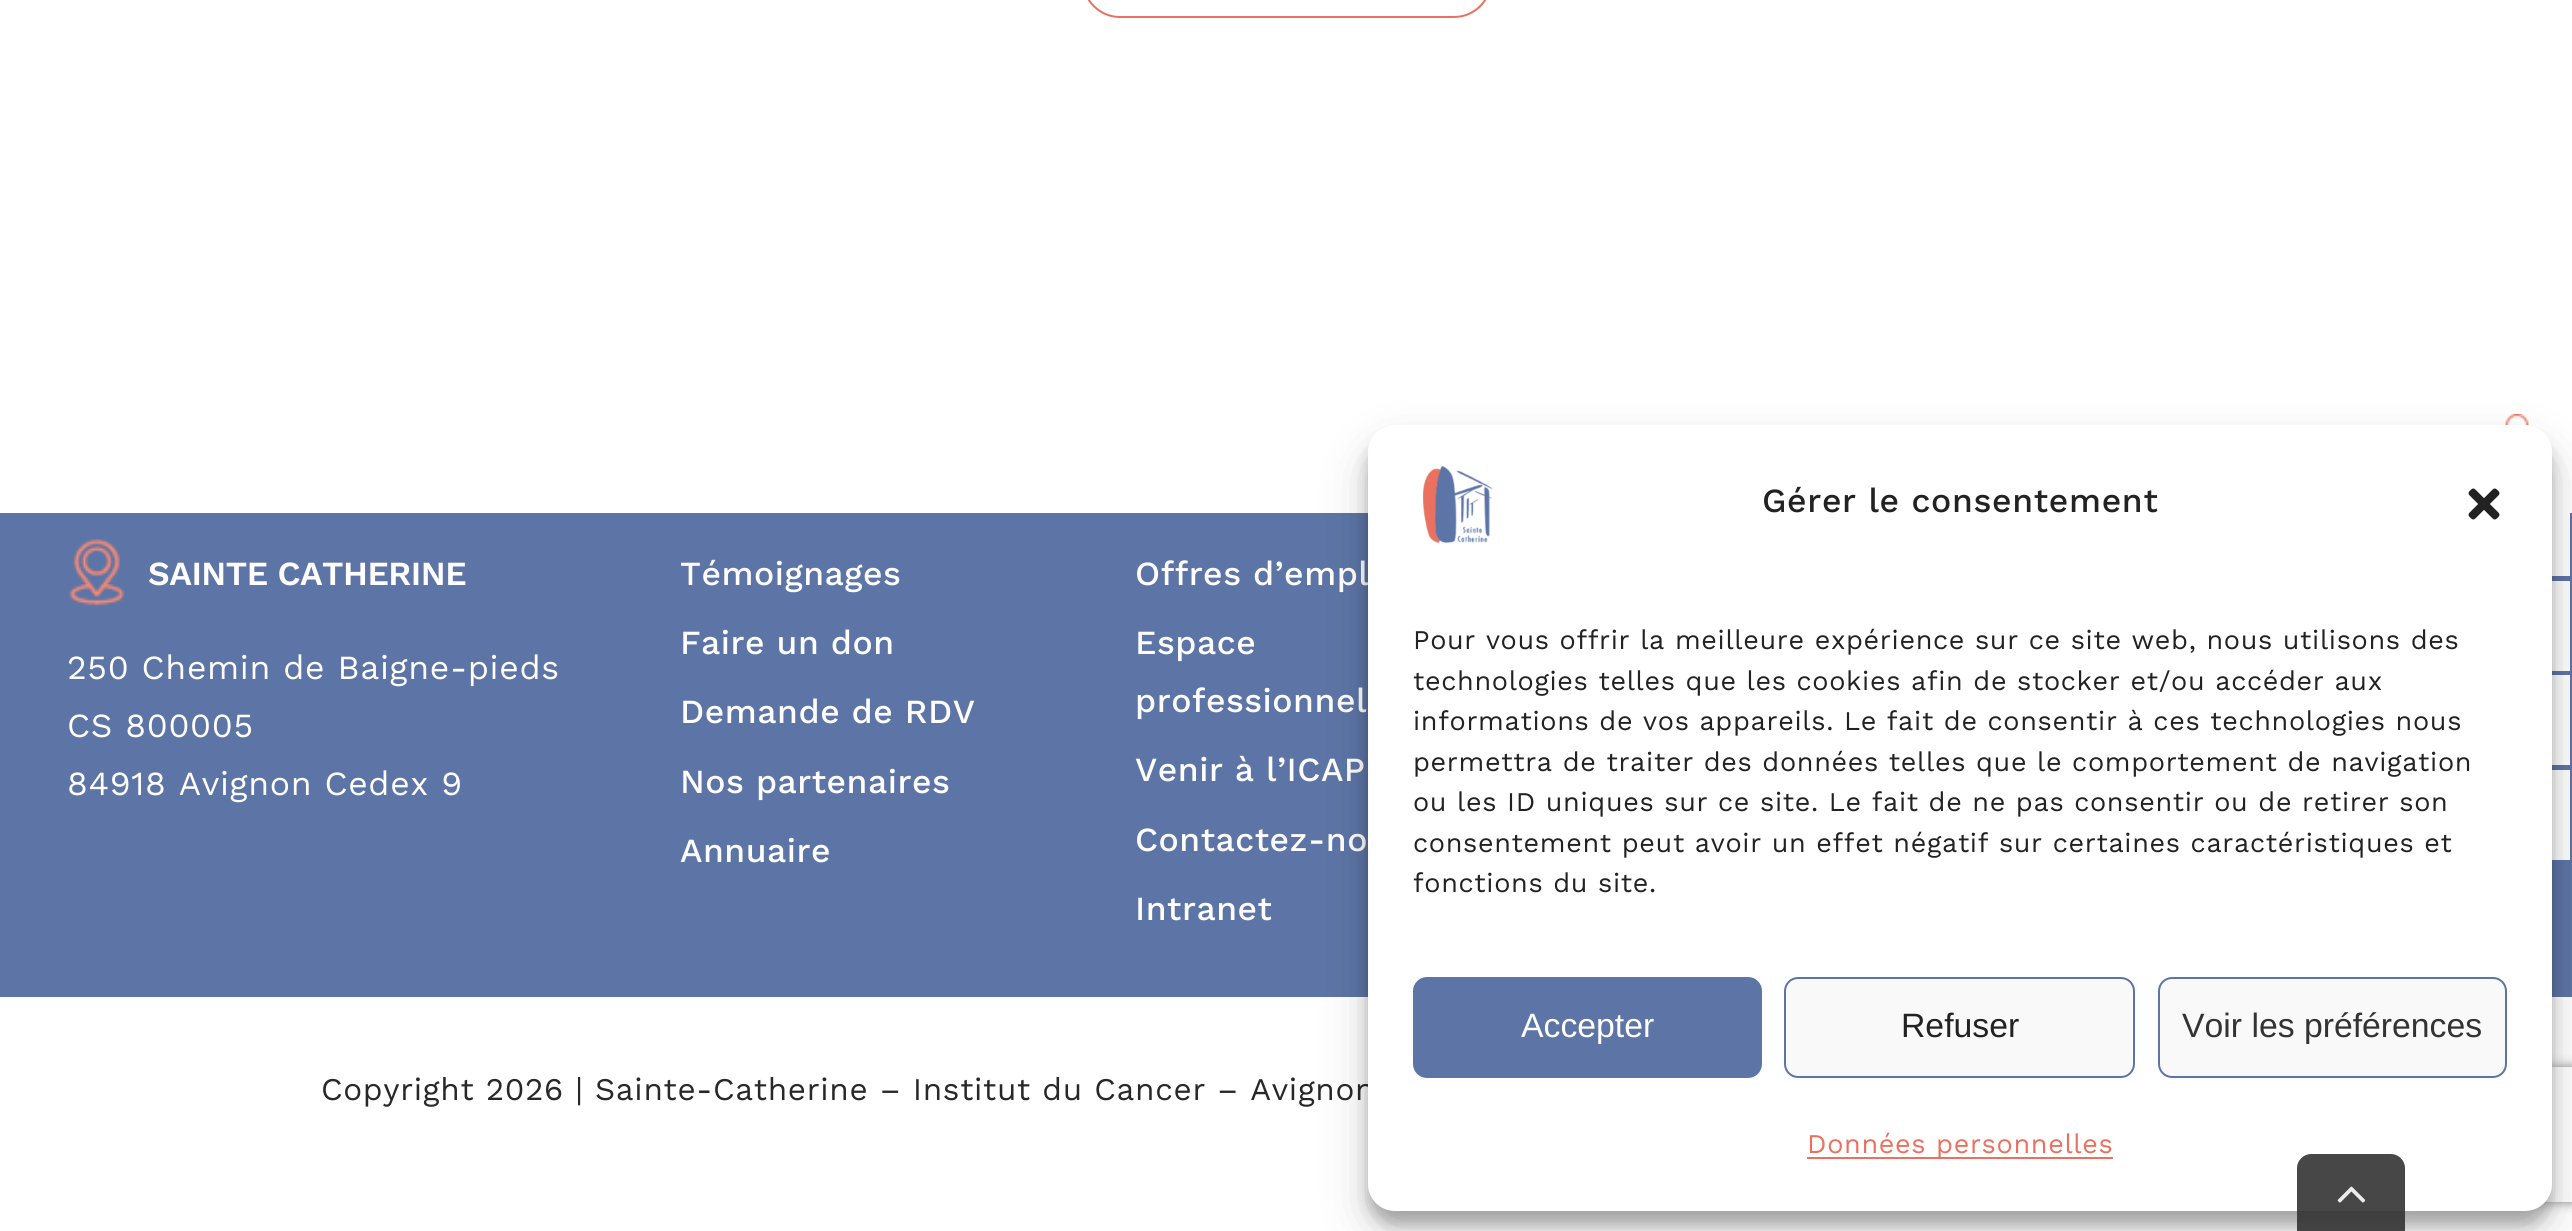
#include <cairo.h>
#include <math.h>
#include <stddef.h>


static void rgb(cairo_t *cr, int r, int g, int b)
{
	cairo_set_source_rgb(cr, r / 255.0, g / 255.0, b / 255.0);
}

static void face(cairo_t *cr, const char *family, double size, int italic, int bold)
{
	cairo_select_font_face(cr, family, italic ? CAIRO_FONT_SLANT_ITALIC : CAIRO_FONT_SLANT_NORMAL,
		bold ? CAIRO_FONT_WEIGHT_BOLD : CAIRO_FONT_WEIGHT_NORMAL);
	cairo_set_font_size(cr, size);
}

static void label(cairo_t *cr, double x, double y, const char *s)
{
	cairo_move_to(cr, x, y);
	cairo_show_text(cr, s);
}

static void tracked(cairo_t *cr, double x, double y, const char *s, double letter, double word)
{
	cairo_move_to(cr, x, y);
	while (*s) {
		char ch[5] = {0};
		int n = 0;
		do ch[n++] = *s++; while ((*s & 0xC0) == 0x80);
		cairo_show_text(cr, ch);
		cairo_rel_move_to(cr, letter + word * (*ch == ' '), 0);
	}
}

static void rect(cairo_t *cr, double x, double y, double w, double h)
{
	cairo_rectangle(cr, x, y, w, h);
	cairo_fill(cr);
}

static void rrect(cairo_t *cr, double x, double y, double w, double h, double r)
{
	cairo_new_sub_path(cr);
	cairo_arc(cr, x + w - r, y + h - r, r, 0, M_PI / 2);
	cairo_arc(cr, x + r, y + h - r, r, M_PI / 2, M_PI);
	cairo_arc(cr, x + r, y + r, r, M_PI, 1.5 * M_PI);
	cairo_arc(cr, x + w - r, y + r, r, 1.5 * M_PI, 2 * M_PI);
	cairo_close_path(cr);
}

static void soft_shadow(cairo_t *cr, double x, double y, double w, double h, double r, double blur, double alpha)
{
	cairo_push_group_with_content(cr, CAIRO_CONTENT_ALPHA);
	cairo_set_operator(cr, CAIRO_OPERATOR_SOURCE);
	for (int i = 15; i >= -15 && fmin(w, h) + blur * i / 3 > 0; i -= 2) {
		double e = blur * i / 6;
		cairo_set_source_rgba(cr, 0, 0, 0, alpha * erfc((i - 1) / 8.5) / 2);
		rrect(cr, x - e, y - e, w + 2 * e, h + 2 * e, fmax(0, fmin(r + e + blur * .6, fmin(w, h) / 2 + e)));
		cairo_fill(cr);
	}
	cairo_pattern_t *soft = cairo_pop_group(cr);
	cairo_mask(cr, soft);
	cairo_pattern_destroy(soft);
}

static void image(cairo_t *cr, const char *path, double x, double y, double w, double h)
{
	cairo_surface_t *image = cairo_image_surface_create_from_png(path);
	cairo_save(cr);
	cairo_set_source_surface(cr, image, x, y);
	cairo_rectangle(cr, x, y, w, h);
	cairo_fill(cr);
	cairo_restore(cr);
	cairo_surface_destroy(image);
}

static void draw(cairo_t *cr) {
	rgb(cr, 255, 255, 255);
	cairo_paint(cr);
	rrect(cr, 1083, -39, 408, 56, 37);
	rgb(cr, 234, 113, 96);
	cairo_stroke(cr);
	rgb(cr, 93, 117, 166);
	rect(cr, 0, 513, 2572, 484);
	image(cr, "image0.png", 69, 539, 56, 67);
	face(cr, "Work Sans SemiBold", 33.75, 0, 0);
	rgb(cr, 255, 255, 255);
	tracked(cr, 148, 585, "SAINTE CATHERINE", -0.5, 0);
	face(cr, "Work Sans", 33.75, 0, 0);
	tracked(cr, 67, 679, "250 Chemin de Baigne-pieds", 0.67, 0);
	tracked(cr, 67, 737, "CS 800005", 0.67, 0);
	tracked(cr, 67, 795, "84918 Avignon Cedex 9", 0.67, 0);
	face(cr, "Work Sans Medium", 33.75, 0, 0);
	tracked(cr, 680, 585, "Témoignages", 0.5, 0);
	tracked(cr, 680, 654, "Faire un don", 0.5, 0);
	tracked(cr, 680, 723, "Demande de RDV", 0.5, 0);
	tracked(cr, 680, 793, "Nos partenaires", 0.5, 0);
	tracked(cr, 680, 862, "Annuaire", 0.5, 0);
	tracked(cr, 1135, 585, "Offres d’empl", 0.5, 0);
	tracked(cr, 1135, 654, "Espace", 0.5, 0);
	tracked(cr, 1135, 712, "professionnel", 0.5, 0);
	tracked(cr, 1135, 781, "Venir à l’ICAP", 0.5, 0);
	tracked(cr, 1135, 851, "Contactez-no", 0.5, 0);
	tracked(cr, 1135, 920, "Intranet", 0.5, 0);
	face(cr, "Work Sans", 31.5, 0, 0);
	rgb(cr, 40, 40, 40);
	tracked(cr, 321, 1100, "Copyright 2026 | Sainte-Catherine – Institut du Cancer – Avignon", 0.67, 0);
	image(cr, "image3.png", 2505, 414, 24, 12);
	rgb(cr, 255, 255, 255);
	rect(cr, 2552, 513, 18, 63);
	rect(cr, 2552, 581, 18, 90);
	rect(cr, 2552, 675, 18, 90);
	rect(cr, 2552, 770, 18, 90);
	rgb(cr, 0, 0, 0);
	soft_shadow(cr, 1368, 439, 1184, 785, 27, 7, 0.23);
	soft_shadow(cr, 1368, 448, 1184, 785, 27, 22.5, 0.19);
	cairo_save(cr);
	cairo_set_fill_rule(cr, CAIRO_FILL_RULE_EVEN_ODD);
	cairo_new_path(cr);
	cairo_move_to(cr, 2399, 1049);
	cairo_line_to(cr, 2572, 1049);
	cairo_line_to(cr, 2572, 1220);
	cairo_line_to(cr, 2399, 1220);
	cairo_close_path(cr);
	cairo_move_to(cr, 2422, 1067);
	cairo_line_to(cr, 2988, 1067);
	cairo_curve_to(cr, 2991, 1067, 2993, 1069, 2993, 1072);
	cairo_line_to(cr, 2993, 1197);
	cairo_curve_to(cr, 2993, 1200, 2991, 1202, 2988, 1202);
	cairo_line_to(cr, 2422, 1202);
	cairo_curve_to(cr, 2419, 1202, 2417, 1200, 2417, 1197);
	cairo_line_to(cr, 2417, 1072);
	cairo_curve_to(cr, 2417, 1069, 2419, 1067, 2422, 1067);
	cairo_close_path(cr);
	cairo_clip(cr);
	rgb(cr, 128, 128, 128);
	soft_shadow(cr, 2417, 1067, 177, 135, 5, 5.5, 1);
	cairo_restore(cr);
	rgb(cr, 255, 255, 255);
	rrect(cr, 1368, 425, 1184, 786, 27);
	cairo_fill(cr);
	image(cr, "image1.png", 1423, 466, 70, 78);
	face(cr, "Work Sans Medium", 33.75, 0, 0);
	rgb(cr, 34, 34, 34);
	tracked(cr, 1762, 512, "Gérer le consentement", 0.67, 0);
	image(cr, "image2.png", 2468, 488, 32, 32);
	face(cr, "Work Sans", 27, 0, 0);
	tracked(cr, 1413, 649, "Pour vous offrir la meilleure expérience sur ce site web, nous utilisons des", 0.67, 0);
	tracked(cr, 1413, 690, "technologies telles que les cookies afin de stocker et/ou accéder aux", 0.67, 0);
	tracked(cr, 1413, 730, "informations de vos appareils. Le fait de consentir à ces technologies nous", 0.67, 0);
	tracked(cr, 1413, 771, "permettra de traiter des données telles que le comportement de navigation", 0.67, 0);
	tracked(cr, 1413, 811, "ou les ID uniques sur ce site. Le fait de ne pas consentir ou de retirer son", 0.67, 0);
	tracked(cr, 1413, 852, "consentement peut avoir un effet négatif sur certaines caractéristiques et", 0.67, 0);
	tracked(cr, 1413, 892, "fonctions du site.", 0.67, 0);
	rgb(cr, 93, 117, 166);
	rrect(cr, 1414, 978, 347, 99, 13);
	cairo_fill_preserve(cr);
	cairo_stroke(cr);
	face(cr, "Liberation Sans", 33.75, 0, 0);
	rgb(cr, 255, 255, 255);
	label(cr, 1521, 1037, "Accepter");
	rgb(cr, 249, 249, 249);
	rrect(cr, 1785, 978, 349, 99, 13);
	cairo_fill_preserve(cr);
	rgb(cr, 93, 117, 166);
	cairo_stroke(cr);
	rgb(cr, 34, 34, 34);
	label(cr, 1901, 1037, "Refuser");
	rgb(cr, 249, 249, 249);
	rrect(cr, 2159, 978, 347, 99, 13);
	cairo_fill_preserve(cr);
	rgb(cr, 93, 117, 166);
	cairo_stroke(cr);
	rgb(cr, 51, 51, 51);
	label(cr, 2182, 1037, "Voir les préférences");
	rgb(cr, 234, 113, 96);
	rect(cr, 1807, 1157, 306, 2);
	face(cr, "Work Sans", 27, 0, 0);
	tracked(cr, 1807, 1153, "Données personnelles", 0.67, 0);
	cairo_set_source_rgba(cr, 0.2, 0.2, 0.2, 0.9);
	cairo_new_path(cr);
	cairo_move_to(cr, 2311, 1154);
	cairo_line_to(cr, 2391, 1154);
	cairo_curve_to(cr, 2398.5, 1154, 2405, 1160.5, 2405, 1168);
	cairo_line_to(cr, 2405, 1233);
	cairo_line_to(cr, 2297, 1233);
	cairo_line_to(cr, 2297, 1168);
	cairo_curve_to(cr, 2297, 1160.5, 2303.5, 1154, 2311, 1154);
	cairo_close_path(cr);
	cairo_fill(cr);
	image(cr, "image4.png", 2337, 1186, 29, 17);
}

int main(void) {
	cairo_surface_t *surface = cairo_image_surface_create(CAIRO_FORMAT_RGB24, 2572, 1231);
	cairo_t *cr = cairo_create(surface);
	cairo_font_options_t *options = cairo_font_options_create();
	cairo_font_options_set_hint_metrics(options, CAIRO_HINT_METRICS_OFF);
	cairo_font_options_set_hint_style(options, CAIRO_HINT_STYLE_NONE);
	cairo_set_font_options(cr, options);
	cairo_set_miter_limit(cr, 4);
	draw(cr);
	cairo_surface_write_to_png(surface, "render.png");
	cairo_font_options_destroy(options);
	cairo_destroy(cr);
	cairo_surface_destroy(surface);
	return 0;
}
